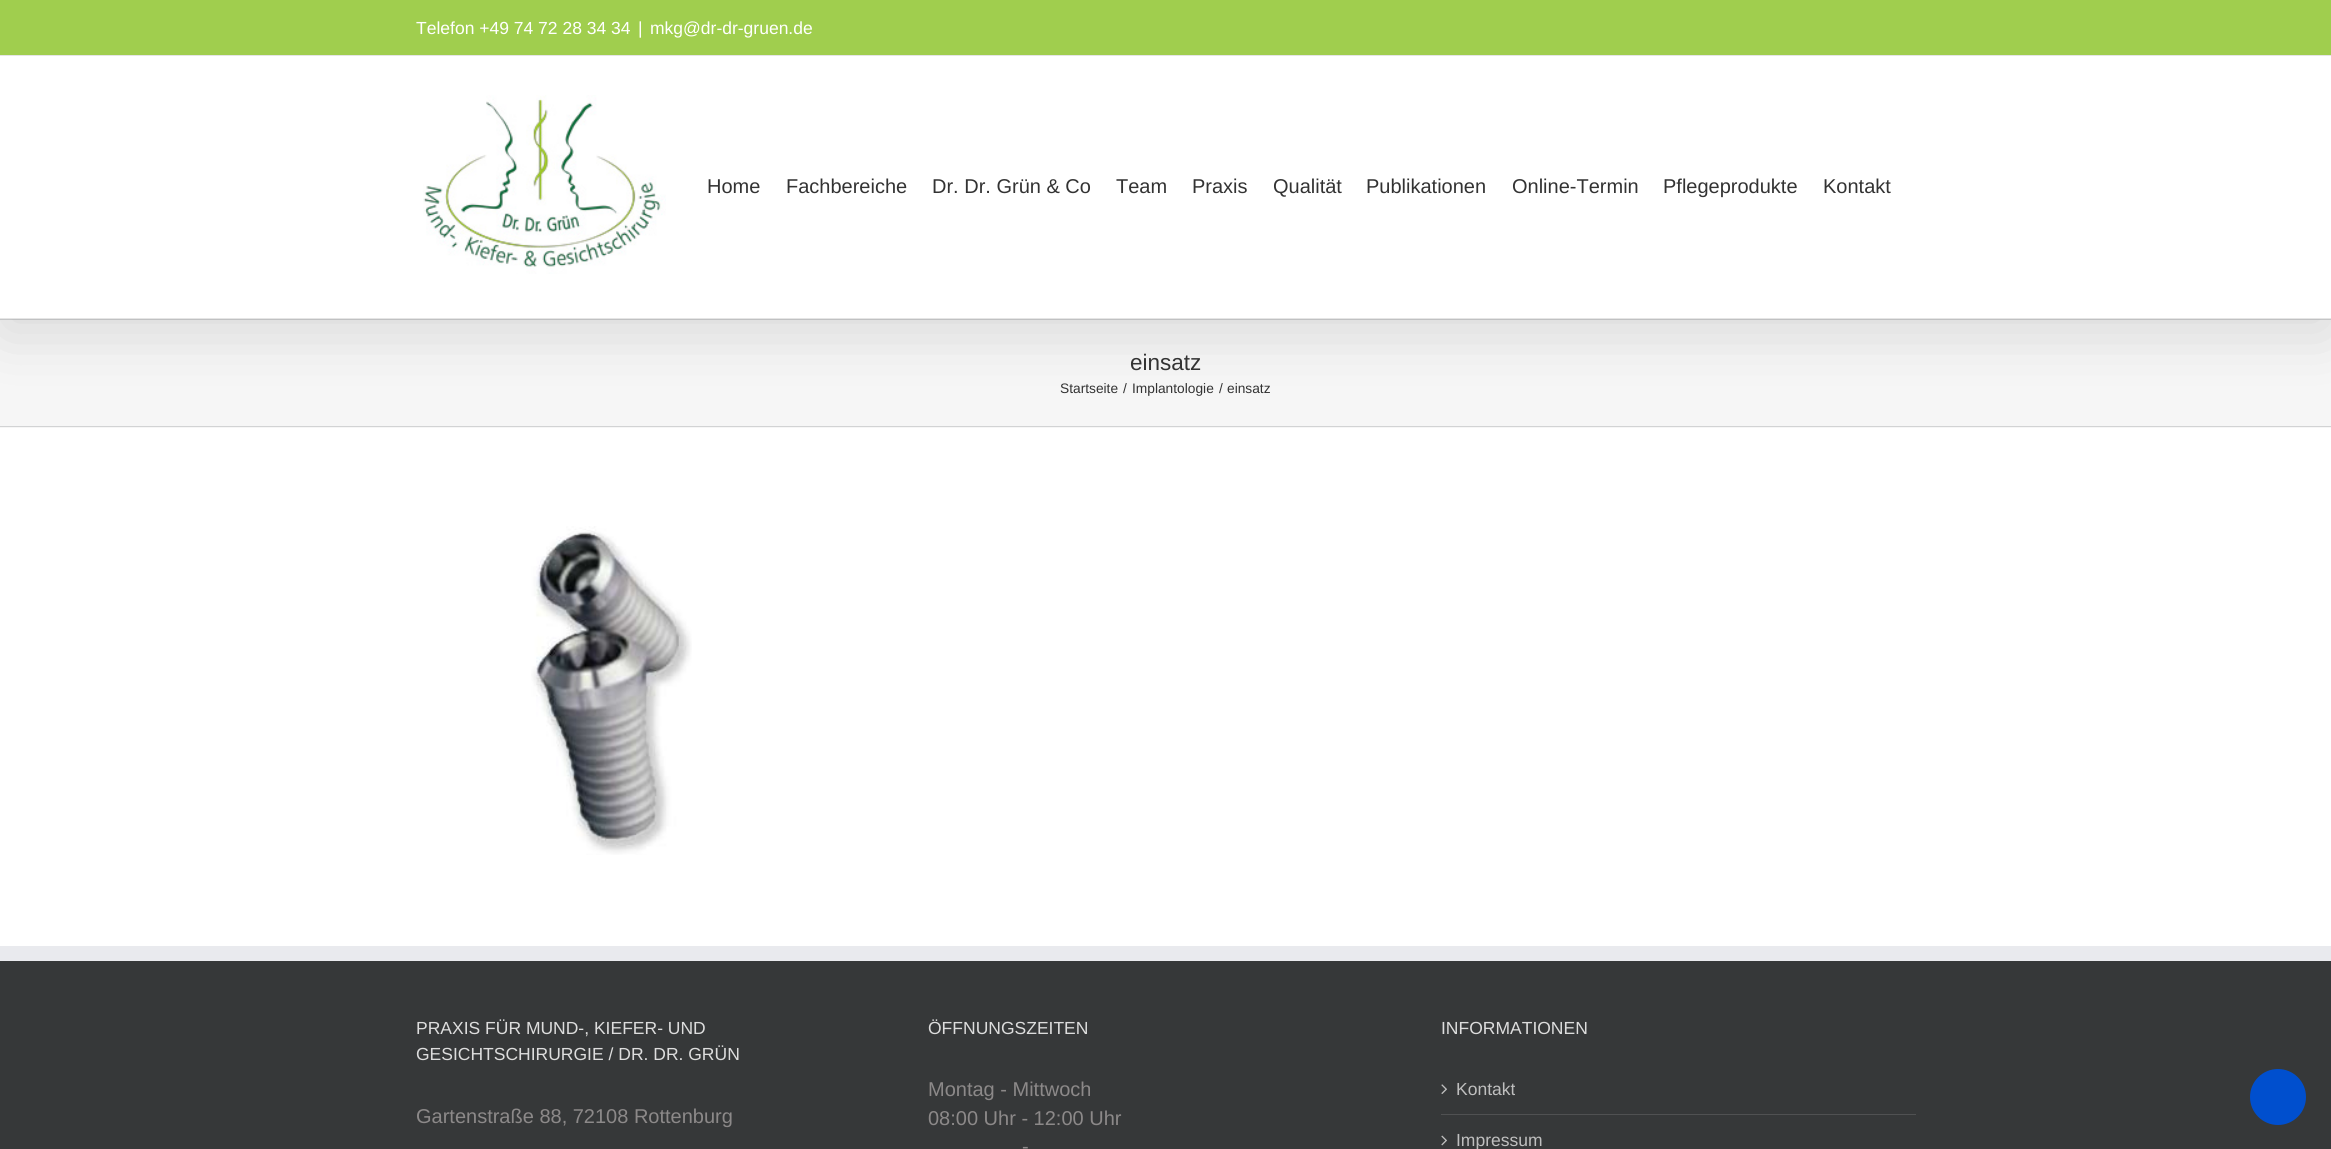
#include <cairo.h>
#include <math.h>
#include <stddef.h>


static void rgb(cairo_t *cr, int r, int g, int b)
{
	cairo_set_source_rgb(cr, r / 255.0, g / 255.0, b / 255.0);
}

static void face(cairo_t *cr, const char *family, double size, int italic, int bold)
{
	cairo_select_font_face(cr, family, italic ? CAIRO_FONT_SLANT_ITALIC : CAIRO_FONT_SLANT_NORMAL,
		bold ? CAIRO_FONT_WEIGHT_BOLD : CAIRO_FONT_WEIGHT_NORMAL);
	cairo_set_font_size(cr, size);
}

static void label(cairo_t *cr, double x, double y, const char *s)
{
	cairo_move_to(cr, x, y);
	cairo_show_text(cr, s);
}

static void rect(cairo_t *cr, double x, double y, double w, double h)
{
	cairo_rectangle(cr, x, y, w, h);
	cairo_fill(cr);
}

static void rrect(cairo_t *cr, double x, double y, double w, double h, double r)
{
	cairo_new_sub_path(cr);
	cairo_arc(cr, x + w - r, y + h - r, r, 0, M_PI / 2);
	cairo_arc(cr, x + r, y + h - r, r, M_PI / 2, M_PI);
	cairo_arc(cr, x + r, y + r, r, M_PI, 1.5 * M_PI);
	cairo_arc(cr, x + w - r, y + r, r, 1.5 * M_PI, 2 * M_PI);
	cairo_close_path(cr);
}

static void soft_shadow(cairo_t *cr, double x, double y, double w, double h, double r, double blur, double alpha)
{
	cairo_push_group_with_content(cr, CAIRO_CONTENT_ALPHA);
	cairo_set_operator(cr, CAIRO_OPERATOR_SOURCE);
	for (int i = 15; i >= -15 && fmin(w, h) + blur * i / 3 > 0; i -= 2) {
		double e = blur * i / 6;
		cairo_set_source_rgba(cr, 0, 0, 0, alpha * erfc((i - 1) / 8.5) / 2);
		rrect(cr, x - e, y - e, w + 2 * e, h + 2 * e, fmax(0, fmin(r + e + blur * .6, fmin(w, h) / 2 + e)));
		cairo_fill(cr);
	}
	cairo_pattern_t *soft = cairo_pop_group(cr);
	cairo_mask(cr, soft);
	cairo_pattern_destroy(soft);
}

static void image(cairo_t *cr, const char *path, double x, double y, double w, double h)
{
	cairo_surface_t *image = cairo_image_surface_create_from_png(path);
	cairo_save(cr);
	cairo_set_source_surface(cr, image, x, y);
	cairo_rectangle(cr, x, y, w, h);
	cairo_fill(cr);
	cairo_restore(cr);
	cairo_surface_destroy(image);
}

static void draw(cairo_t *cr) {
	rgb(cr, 255, 255, 255);
	cairo_paint(cr);
	rgb(cr, 246, 246, 246);
	rect(cr, 0, 320, 2331, 108);
	rgb(cr, 210, 211, 212);
	rect(cr, 0, 319, 2331, 1);
	rgb(cr, 0, 0, 0);
	soft_shadow(cr, 3, 15, 2326, 314, 0, 31, 0.14);
	rgb(cr, 160, 206, 78);
	rect(cr, 0, 0, 2331, 55);
	rgb(cr, 229, 229, 229);
	rect(cr, 0, 55, 2331, 1);
	face(cr, "Liberation Sans", 17.5, 0, 0);
	rgb(cr, 255, 255, 255);
	label(cr, 416, 34, "Telefon +49 74 72 28 34 34");
	label(cr, 638, 34, "|");
	label(cr, 650, 34, "mkg@dr-dr-gruen.de");
	rect(cr, 0, 56, 2331, 262);
	rgb(cr, 229, 229, 229);
	rect(cr, 0, 318, 2331, 1);
	image(cr, "image0.png", 423, 95, 243, 179);
	face(cr, "Liberation Sans", 20, 0, 0);
	rgb(cr, 51, 51, 51);
	label(cr, 707, 193, "Home");
	label(cr, 786, 193, "Fachbereiche");
	label(cr, 932, 193, "Dr. Dr. Grün & Co");
	label(cr, 1116, 193, "Team");
	label(cr, 1192, 193, "Praxis");
	label(cr, 1273, 193, "Qualität");
	label(cr, 1366, 193, "Publikationen");
	label(cr, 1512, 193, "Online-Termin");
	label(cr, 1663, 193, "Pflegeprodukte");
	label(cr, 1823, 193, "Kontakt");
	rgb(cr, 210, 211, 212);
	rect(cr, 0, 426, 2331, 1);
	face(cr, "Liberation Sans", 22.5, 0, 0);
	rgb(cr, 51, 51, 51);
	label(cr, 1130, 370, "einsatz");
	face(cr, "Liberation Sans", 13.75, 0, 0);
	label(cr, 1060, 393, "Startseite");
	label(cr, 1123, 393, "/");
	label(cr, 1132, 393, "Implantologie");
	label(cr, 1219, 393, "/");
	label(cr, 1227, 393, "einsatz");
	image(cr, "image1.png", 531, 526, 161, 329);
	rgb(cr, 54, 56, 57);
	rect(cr, 0, 961, 2331, 188);
	rgb(cr, 233, 234, 238);
	rect(cr, 0, 946, 2331, 15);
	face(cr, "Liberation Sans", 17.5, 0, 0);
	rgb(cr, 221, 221, 221);
	label(cr, 416, 1034, "PRAXIS FÜR MUND-, KIEFER- UND");
	label(cr, 416, 1060, "GESICHTSCHIRURGIE / DR. DR. GRÜN");
	face(cr, "Liberation Sans", 20, 0, 0);
	rgb(cr, 140, 137, 137);
	label(cr, 416, 1123, "Gartenstraße 88, 72108 Rottenburg");
	face(cr, "Liberation Sans", 17.5, 0, 0);
	rgb(cr, 221, 221, 221);
	label(cr, 928, 1034, "ÖFFNUNGSZEITEN");
	face(cr, "Liberation Sans", 20, 0, 0);
	rgb(cr, 140, 137, 137);
	label(cr, 928, 1096, "Montag - Mittwoch");
	label(cr, 928, 1125, "08:00 Uhr - 12:00 Uhr");
	label(cr, 1022, 1153, "-");
	face(cr, "Liberation Sans", 17.5, 0, 0);
	rgb(cr, 221, 221, 221);
	label(cr, 1441, 1034, "INFORMATIONEN");
	rgb(cr, 80, 81, 82);
	rect(cr, 1441, 1114, 475, 1);
	image(cr, "image2.png", 1441, 1084, 6, 10);
	rgb(cr, 191, 191, 191);
	label(cr, 1456, 1095, "Kontakt");
	image(cr, "image3.png", 1441, 1135, 6, 11);
	label(cr, 1456, 1146, "Impressum");
	rgb(cr, 0, 79, 206);
	cairo_new_path(cr);
	cairo_arc(cr, 2278, 1097, 28, 0, 2 * M_PI);
	cairo_fill(cr);
}

int main(void) {
	cairo_surface_t *surface = cairo_image_surface_create(CAIRO_FORMAT_RGB24, 2331, 1149);
	cairo_t *cr = cairo_create(surface);
	cairo_font_options_t *options = cairo_font_options_create();
	cairo_font_options_set_hint_metrics(options, CAIRO_HINT_METRICS_OFF);
	cairo_font_options_set_hint_style(options, CAIRO_HINT_STYLE_NONE);
	cairo_set_font_options(cr, options);
	cairo_set_miter_limit(cr, 4);
	draw(cr);
	cairo_surface_write_to_png(surface, "render.png");
	cairo_font_options_destroy(options);
	cairo_destroy(cr);
	cairo_surface_destroy(surface);
	return 0;
}
